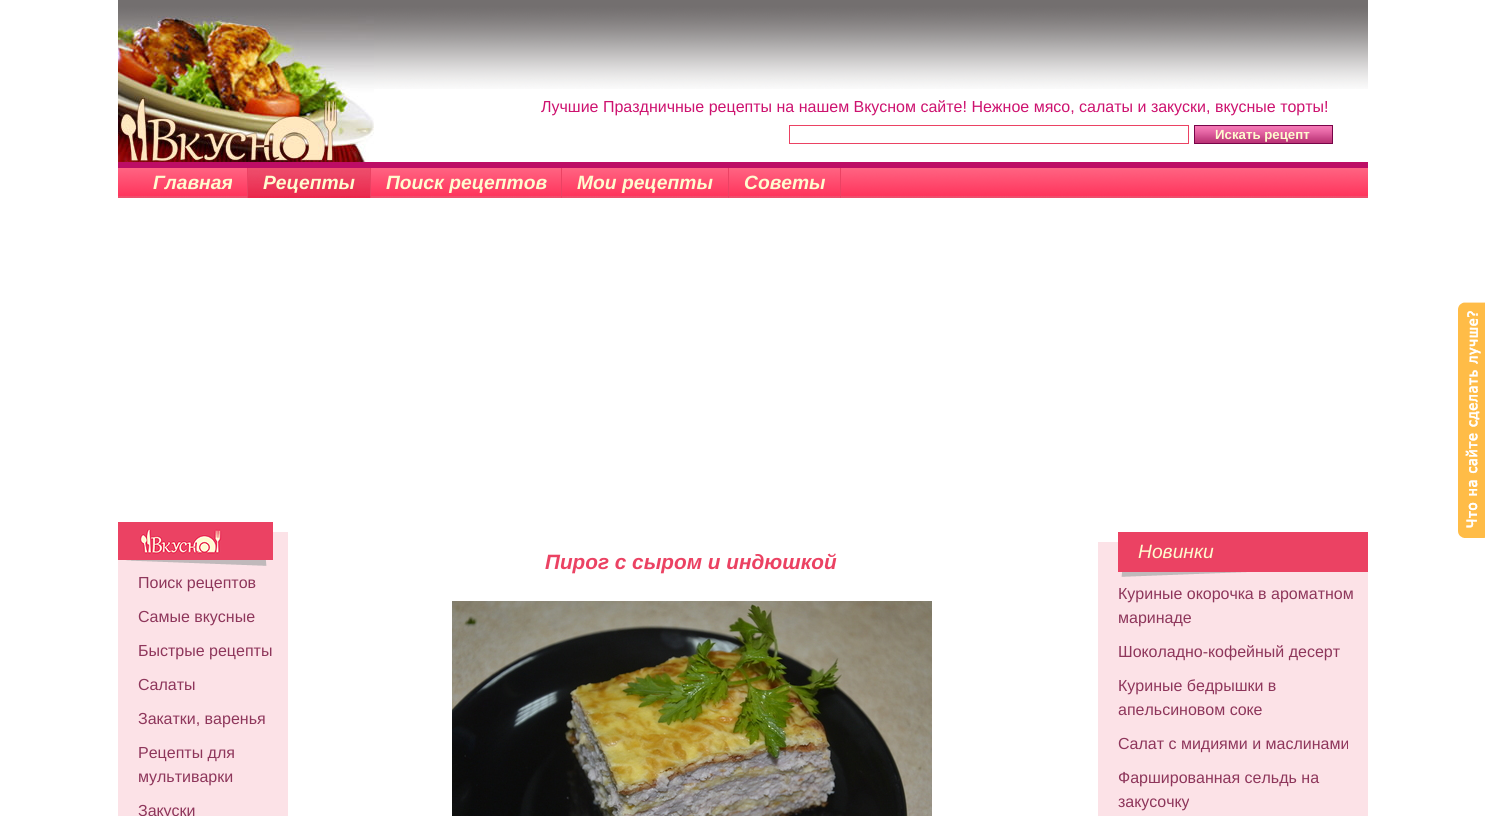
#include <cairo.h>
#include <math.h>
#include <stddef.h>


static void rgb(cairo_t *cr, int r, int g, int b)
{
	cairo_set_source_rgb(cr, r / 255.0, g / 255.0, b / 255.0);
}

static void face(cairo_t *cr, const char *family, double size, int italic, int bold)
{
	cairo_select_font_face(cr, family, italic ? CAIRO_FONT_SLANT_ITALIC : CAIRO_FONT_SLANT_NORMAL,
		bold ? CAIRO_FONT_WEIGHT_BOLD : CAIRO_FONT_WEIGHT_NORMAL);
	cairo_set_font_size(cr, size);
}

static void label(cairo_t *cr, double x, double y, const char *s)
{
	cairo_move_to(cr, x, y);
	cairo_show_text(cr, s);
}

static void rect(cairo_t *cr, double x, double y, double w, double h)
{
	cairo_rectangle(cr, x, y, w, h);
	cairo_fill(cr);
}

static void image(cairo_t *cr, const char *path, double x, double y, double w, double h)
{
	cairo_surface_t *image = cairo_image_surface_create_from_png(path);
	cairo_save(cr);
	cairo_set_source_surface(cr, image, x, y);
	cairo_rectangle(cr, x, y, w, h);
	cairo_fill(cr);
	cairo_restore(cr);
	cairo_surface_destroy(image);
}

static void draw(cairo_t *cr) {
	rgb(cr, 255, 255, 255);
	cairo_paint(cr);
	image(cr, "image0.png", 118, 0, 1250, 89);
	image(cr, "image1.png", 118, 16, 256, 146);
	face(cr, "Liberation Sans", 16, 0, 0);
	rgb(cr, 205, 18, 111);
	label(cr, 541, 112, "Лучшие Праздничные рецепты на нашем Вкусном сайте! Нежное мясо, салаты и закуски, вкусные торты!");
	cairo_rectangle(cr, 789.5, 125.5, 399, 18);
	rgb(cr, 235, 66, 99);
	cairo_set_line_width(cr, 1);
	cairo_stroke(cr);
	image(cr, "image2.png", 1195, 126, 137, 17);
	cairo_rectangle(cr, 1194.5, 125.5, 138, 18);
	rgb(cr, 120, 4, 73);
	cairo_stroke(cr);
	face(cr, "Liberation Sans", 13.25, 0, 1);
	rgb(cr, 254, 251, 207);
	label(cr, 1215, 139, "Искать рецепт");
	image(cr, "image3.png", 118, 168, 1250, 30);
	rgb(cr, 189, 13, 101);
	rect(cr, 118, 162, 1250, 6);
	rgb(cr, 235, 66, 99);
	rect(cr, 247, 168, 1, 30);
	face(cr, "Liberation Sans", 19.25, 1, 1);
	rgb(cr, 254, 251, 207);
	label(cr, 153, 189, "Главная");
	image(cr, "image4.png", 248, 168, 122, 30);
	rgb(cr, 235, 66, 99);
	rect(cr, 370, 168, 1, 30);
	rgb(cr, 254, 251, 207);
	label(cr, 263, 189, "Рецепты");
	rgb(cr, 235, 66, 99);
	rect(cr, 561, 168, 1, 30);
	rgb(cr, 254, 251, 207);
	label(cr, 386, 189, "Поиск рецептов");
	rgb(cr, 235, 66, 99);
	rect(cr, 728, 168, 1, 30);
	rgb(cr, 254, 251, 207);
	label(cr, 577, 189, "Мои рецепты");
	rgb(cr, 235, 66, 99);
	rect(cr, 840, 168, 1, 30);
	rgb(cr, 254, 251, 207);
	label(cr, 744, 189, "Советы");
	image(cr, "image5.png", 1458, 302, 27, 236);
	face(cr, "Liberation Sans", 20.75, 1, 1);
	rgb(cr, 235, 66, 99);
	label(cr, 545, 569, "Пирог с сыром и индюшкой");
	image(cr, "image6.png", 452, 601, 480, 215);
	rgb(cr, 252, 226, 231);
	rect(cr, 1098, 542, 270, 274);
	rgb(cr, 235, 66, 99);
	rect(cr, 1118, 532, 250, 40);
	image(cr, "image7.png", 1118, 572, 250, 5);
	face(cr, "Liberation Sans", 19.25, 1, 0);
	rgb(cr, 254, 251, 207);
	label(cr, 1138, 558, "Новинки");
	face(cr, "Liberation Sans", 16, 0, 0);
	rgb(cr, 142, 54, 91);
	label(cr, 1118, 599, "Куриные окорочка в ароматном");
	label(cr, 1118, 623, "маринаде");
	label(cr, 1118, 657, "Шоколадно-кофейный десерт");
	label(cr, 1118, 691, "Куриные бедрышки в");
	label(cr, 1118, 715, "апельсиновом соке");
	label(cr, 1118, 749, "Салат с мидиями и маслинами");
	label(cr, 1118, 783, "Фаршированная сельдь на");
	label(cr, 1118, 807, "закусочку");
	rgb(cr, 252, 226, 231);
	rect(cr, 118, 532, 170, 284);
	rgb(cr, 235, 66, 99);
	rect(cr, 118, 522, 155, 38);
	image(cr, "image8.png", 118, 560, 155, 6);
	image(cr, "image9.png", 140, 529, 82, 25);
	rgb(cr, 142, 54, 91);
	label(cr, 138, 588, "Поиск рецептов");
	label(cr, 138, 622, "Самые вкусные");
	label(cr, 138, 656, "Быстрые рецепты");
	label(cr, 138, 690, "Салаты");
	label(cr, 138, 724, "Закатки, варенья");
	label(cr, 138, 758, "Рецепты для");
	label(cr, 138, 782, "мультиварки");
	label(cr, 138, 816, "Закуски");
}

int main(void) {
	cairo_surface_t *surface = cairo_image_surface_create(CAIRO_FORMAT_RGB24, 1485, 816);
	cairo_t *cr = cairo_create(surface);
	cairo_font_options_t *options = cairo_font_options_create();
	cairo_font_options_set_hint_metrics(options, CAIRO_HINT_METRICS_OFF);
	cairo_font_options_set_hint_style(options, CAIRO_HINT_STYLE_NONE);
	cairo_set_font_options(cr, options);
	cairo_set_miter_limit(cr, 4);
	draw(cr);
	cairo_surface_write_to_png(surface, "render.png");
	cairo_font_options_destroy(options);
	cairo_destroy(cr);
	cairo_surface_destroy(surface);
	return 0;
}
